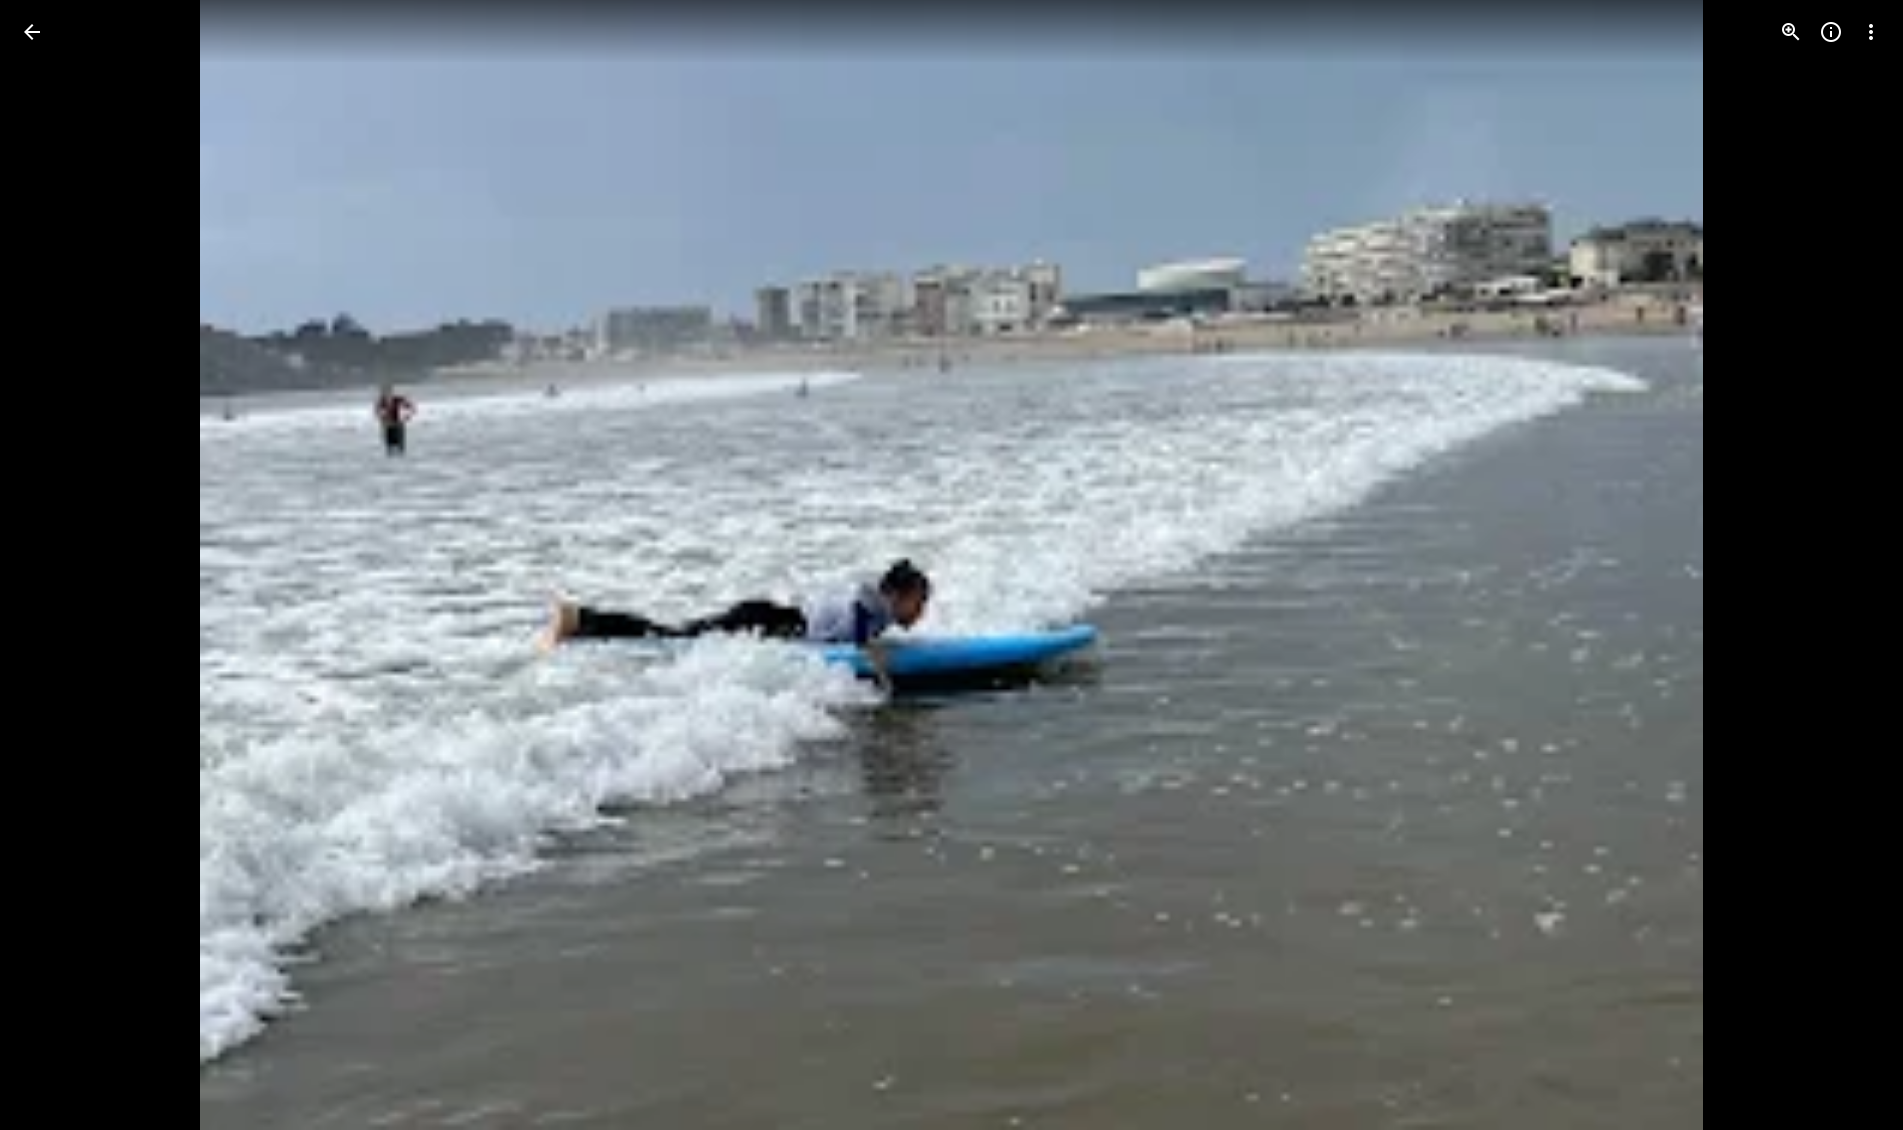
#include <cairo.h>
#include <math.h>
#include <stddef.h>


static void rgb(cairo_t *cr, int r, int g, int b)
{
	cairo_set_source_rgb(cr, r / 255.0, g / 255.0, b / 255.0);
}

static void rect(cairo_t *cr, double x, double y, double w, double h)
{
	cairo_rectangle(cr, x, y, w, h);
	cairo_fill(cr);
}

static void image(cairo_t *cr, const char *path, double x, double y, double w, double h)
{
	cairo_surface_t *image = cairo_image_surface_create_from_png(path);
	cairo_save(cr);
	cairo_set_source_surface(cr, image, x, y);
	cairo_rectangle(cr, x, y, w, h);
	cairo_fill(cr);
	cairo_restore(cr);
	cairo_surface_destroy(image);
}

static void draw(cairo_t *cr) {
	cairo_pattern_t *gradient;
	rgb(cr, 0, 0, 0);
	cairo_paint(cr);
	image(cr, "image4.png", 200, 0, 1503, 1130);
	gradient = cairo_pattern_create_linear(952, 0, 952, 64);
	cairo_pattern_add_color_stop_rgba(gradient, 0, 0, 0, 0, 0.6);
	cairo_pattern_add_color_stop_rgba(gradient, 1, 0, 0, 0, 0);
	cairo_set_source(cr, gradient);
	cairo_pattern_destroy(gradient);
	rect(cr, 200, 0, 1503, 62);
	image(cr, "image0.png", 24, 24, 16, 16);
	image(cr, "image1.png", 1782, 23, 18, 18);
	image(cr, "image2.png", 1821, 22, 20, 20);
	image(cr, "image3.png", 1869, 24, 4, 16);
}

int main(void) {
	cairo_surface_t *surface = cairo_image_surface_create(CAIRO_FORMAT_RGB24, 1903, 1130);
	cairo_t *cr = cairo_create(surface);
	cairo_font_options_t *options = cairo_font_options_create();
	cairo_font_options_set_hint_metrics(options, CAIRO_HINT_METRICS_OFF);
	cairo_font_options_set_hint_style(options, CAIRO_HINT_STYLE_NONE);
	cairo_set_font_options(cr, options);
	cairo_set_miter_limit(cr, 4);
	draw(cr);
	cairo_surface_write_to_png(surface, "render.png");
	cairo_font_options_destroy(options);
	cairo_destroy(cr);
	cairo_surface_destroy(surface);
	return 0;
}
